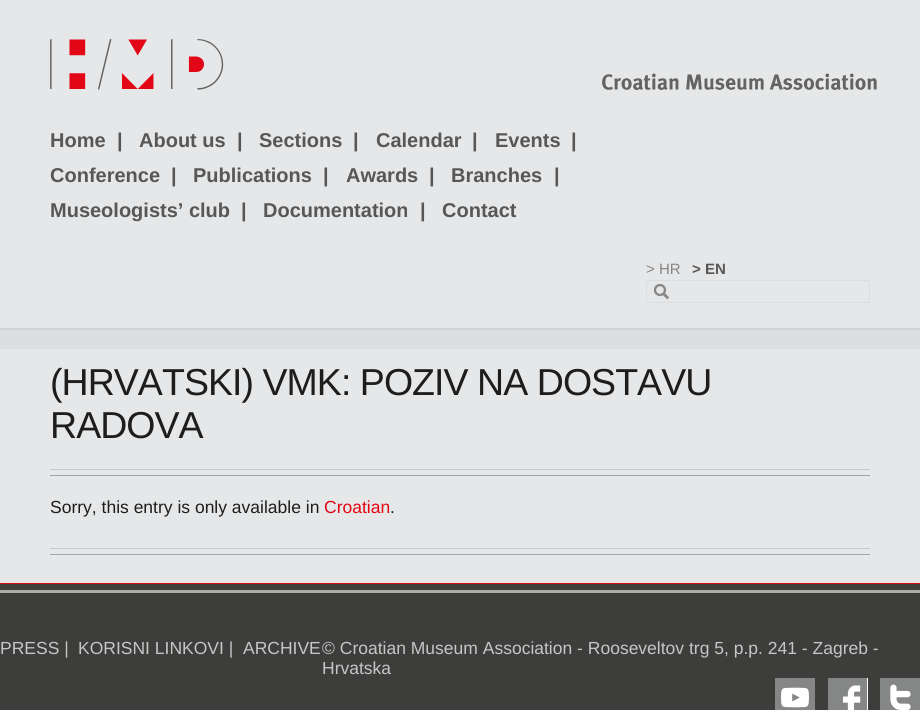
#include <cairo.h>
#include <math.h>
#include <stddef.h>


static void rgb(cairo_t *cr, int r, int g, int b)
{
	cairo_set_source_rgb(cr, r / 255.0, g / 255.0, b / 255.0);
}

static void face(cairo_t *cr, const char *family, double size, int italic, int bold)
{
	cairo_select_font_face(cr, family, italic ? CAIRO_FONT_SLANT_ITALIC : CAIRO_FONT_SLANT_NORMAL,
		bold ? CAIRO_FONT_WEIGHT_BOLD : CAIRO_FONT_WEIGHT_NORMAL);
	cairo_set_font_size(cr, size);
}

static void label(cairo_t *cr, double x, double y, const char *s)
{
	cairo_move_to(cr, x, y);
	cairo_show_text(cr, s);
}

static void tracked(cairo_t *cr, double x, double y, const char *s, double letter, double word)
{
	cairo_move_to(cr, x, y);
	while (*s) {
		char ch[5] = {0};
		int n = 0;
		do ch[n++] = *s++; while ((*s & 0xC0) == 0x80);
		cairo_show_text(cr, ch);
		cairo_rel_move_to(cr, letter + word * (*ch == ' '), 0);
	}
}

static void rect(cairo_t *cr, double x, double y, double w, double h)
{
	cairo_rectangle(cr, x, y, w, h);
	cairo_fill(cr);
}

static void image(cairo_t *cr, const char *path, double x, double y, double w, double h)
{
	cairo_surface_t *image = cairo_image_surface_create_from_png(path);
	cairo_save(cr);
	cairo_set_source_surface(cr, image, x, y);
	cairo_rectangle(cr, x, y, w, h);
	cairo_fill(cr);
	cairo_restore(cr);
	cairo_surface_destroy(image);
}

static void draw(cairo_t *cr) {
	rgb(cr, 230, 231, 232);
	cairo_paint(cr);
	image(cr, "image0.png", 50, 39, 827, 51);
	rgb(cr, 209, 211, 212);
	rect(cr, 0, 328, 920, 2);
	face(cr, "Liberation Sans", 20, 0, 1);
	rgb(cr, 88, 87, 87);
	label(cr, 50, 147, "Home");
	label(cr, 117, 147, "|");
	label(cr, 139, 147, "About us");
	label(cr, 237, 147, "|");
	label(cr, 259, 147, "Sections");
	label(cr, 353, 147, "|");
	label(cr, 376, 147, "Calendar");
	label(cr, 472, 147, "|");
	label(cr, 495, 147, "Events");
	label(cr, 571, 147, "|");
	label(cr, 50, 182, "Conference");
	label(cr, 171, 182, "|");
	label(cr, 193, 182, "Publications");
	label(cr, 323, 182, "|");
	label(cr, 346, 182, "Awards");
	label(cr, 429, 182, "|");
	label(cr, 451, 182, "Branches");
	label(cr, 554, 182, "|");
	label(cr, 50, 217, "Museologists’ club");
	label(cr, 241, 217, "|");
	label(cr, 263, 217, "Documentation");
	label(cr, 420, 217, "|");
	label(cr, 442, 217, "Contact");
	face(cr, "Liberation Sans", 15, 0, 0);
	rgb(cr, 134, 134, 134);
	label(cr, 646, 274, "> HR");
	face(cr, "Liberation Sans", 15, 0, 1);
	rgb(cr, 88, 87, 87);
	label(cr, 692, 274, "> EN");
	image(cr, "image1.png", 654, 284, 15, 16);
	cairo_rectangle(cr, 646.5, 280.5, 223, 22);
	rgb(cr, 220, 221, 222);
	cairo_set_line_width(cr, 1);
	cairo_stroke(cr);
	rect(cr, 0, 330, 920, 19);
	rgb(cr, 202, 202, 202);
	rect(cr, 50, 469, 820, 1);
	face(cr, "Liberation Sans", 37.5, 0, 0);
	rgb(cr, 29, 29, 27);
	tracked(cr, 50, 395, "(HRVATSKI) VMK: POZIV NA DOSTAVU", -0.95, 0);
	tracked(cr, 50, 438, "RADOVA", -0.95, 0);
	rgb(cr, 164, 164, 164);
	rect(cr, 50, 475, 820, 1);
	rgb(cr, 202, 202, 202);
	rect(cr, 50, 548, 820, 1);
	face(cr, "Liberation Sans", 17.5, 0, 0);
	rgb(cr, 29, 29, 27);
	label(cr, 50, 513, "Sorry, this entry is only available in");
	rgb(cr, 226, 6, 19);
	label(cr, 324, 513, "Croatian");
	rgb(cr, 29, 29, 27);
	label(cr, 390, 513, ".");
	rgb(cr, 164, 164, 164);
	rect(cr, 50, 554, 820, 1);
	rgb(cr, 61, 61, 60);
	rect(cr, 0, 584, 920, 126);
	rgb(cr, 216, 10, 22);
	rect(cr, 0, 583, 920, 1);
	rgb(cr, 170, 170, 169);
	rect(cr, 0, 590, 920, 3);
	rgb(cr, 199, 198, 198);
	label(cr, 0, 654, "PRESS |");
	label(cr, 78, 654, "KORISNI LINKOVI |");
	label(cr, 243, 654, "ARCHIVE");
	label(cr, 322, 654, "© Croatian Museum Association - Rooseveltov trg 5, p.p. 241 - Zagreb -");
	label(cr, 322, 674, "Hrvatska");
	rgb(cr, 255, 255, 255);
	rect(cr, 781, 687, 28, 21);
	image(cr, "image2.png", 775, 678, 40, 32);
	rect(cr, 867, 678, 1, 32);
	image(cr, "image3.png", 828, 678, 39, 32);
	image(cr, "image4.png", 880, 678, 40, 32);
}

int main(void) {
	cairo_surface_t *surface = cairo_image_surface_create(CAIRO_FORMAT_RGB24, 920, 710);
	cairo_t *cr = cairo_create(surface);
	cairo_font_options_t *options = cairo_font_options_create();
	cairo_font_options_set_hint_metrics(options, CAIRO_HINT_METRICS_OFF);
	cairo_font_options_set_hint_style(options, CAIRO_HINT_STYLE_NONE);
	cairo_set_font_options(cr, options);
	cairo_set_miter_limit(cr, 4);
	draw(cr);
	cairo_surface_write_to_png(surface, "render.png");
	cairo_font_options_destroy(options);
	cairo_destroy(cr);
	cairo_surface_destroy(surface);
	return 0;
}
